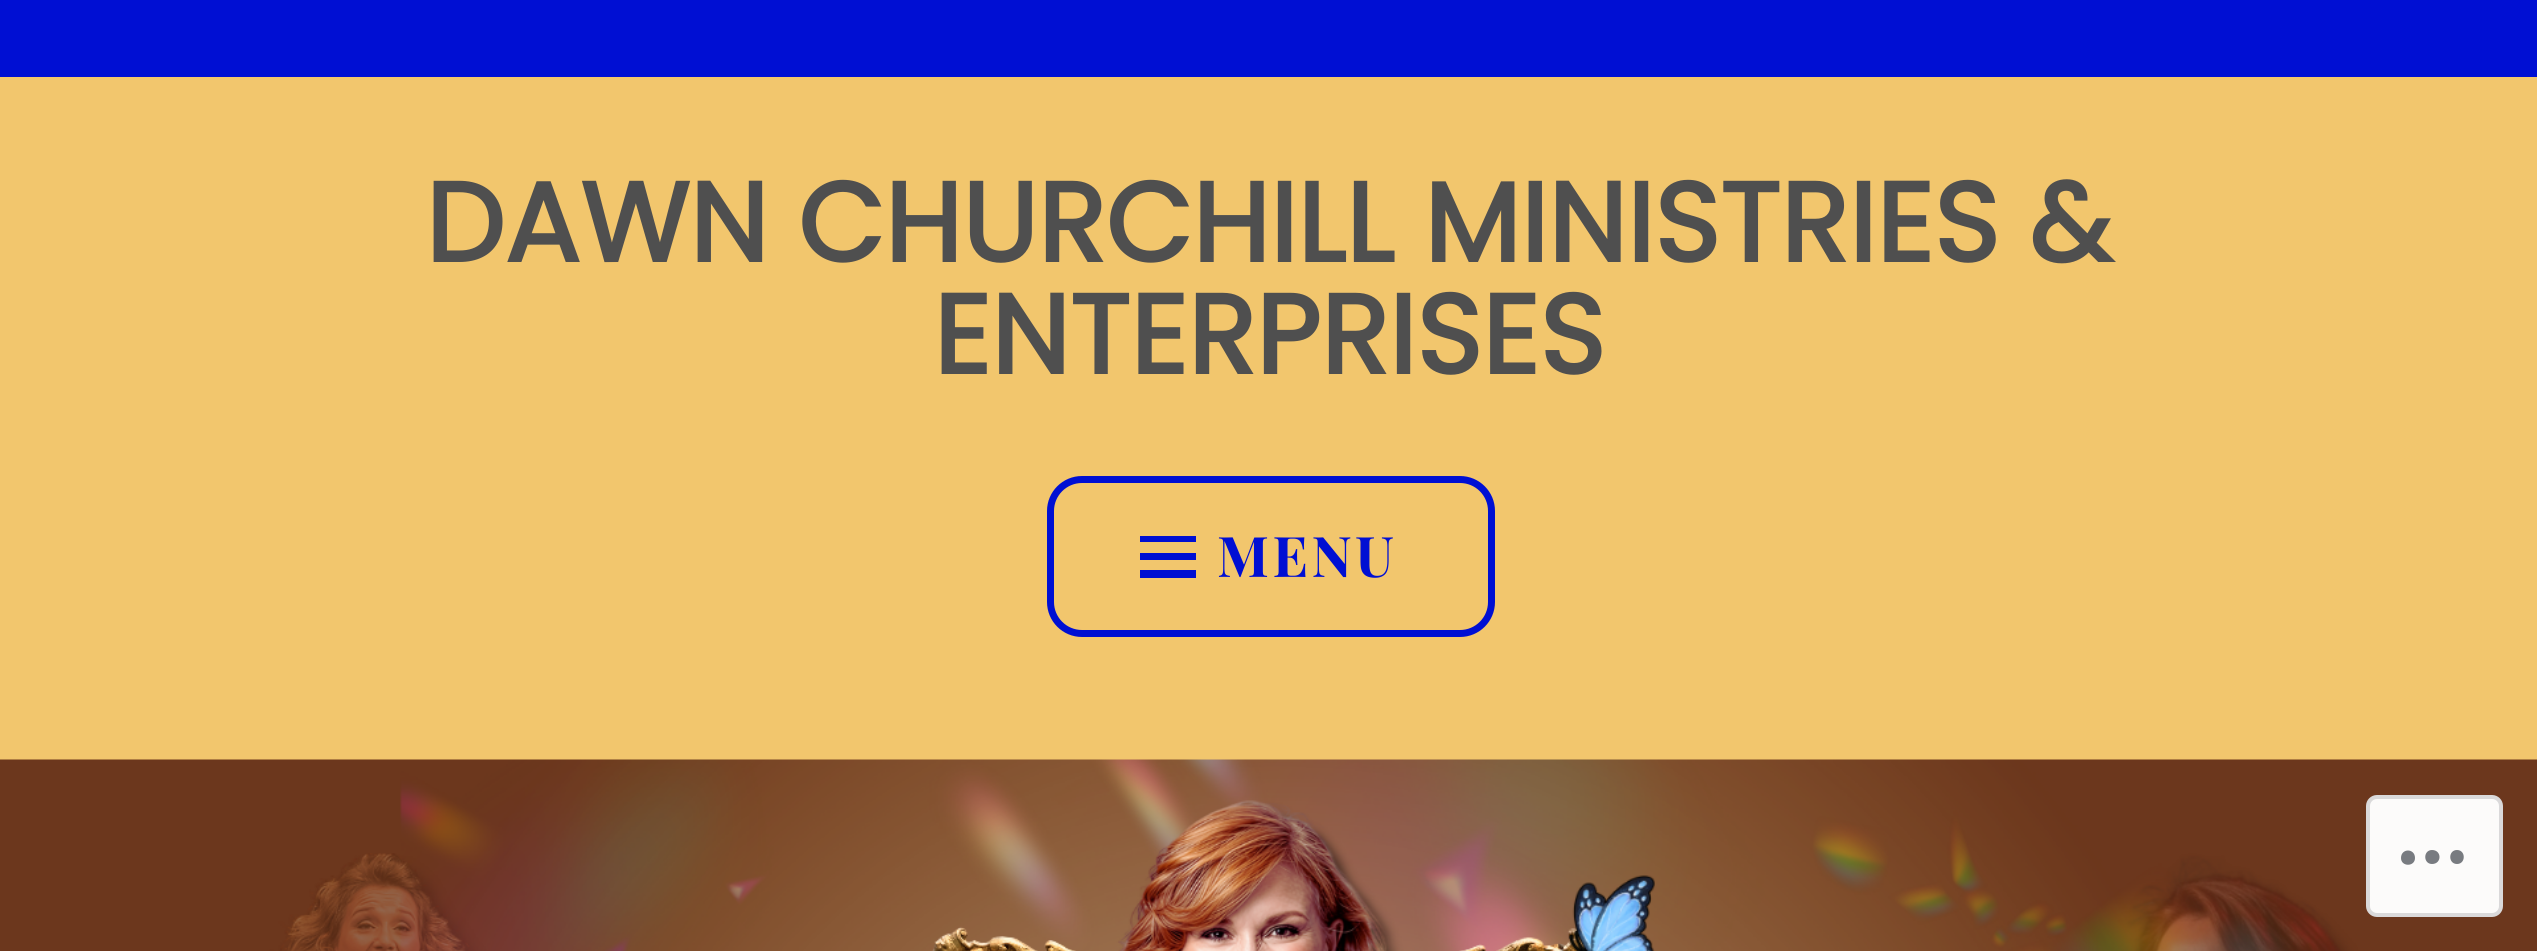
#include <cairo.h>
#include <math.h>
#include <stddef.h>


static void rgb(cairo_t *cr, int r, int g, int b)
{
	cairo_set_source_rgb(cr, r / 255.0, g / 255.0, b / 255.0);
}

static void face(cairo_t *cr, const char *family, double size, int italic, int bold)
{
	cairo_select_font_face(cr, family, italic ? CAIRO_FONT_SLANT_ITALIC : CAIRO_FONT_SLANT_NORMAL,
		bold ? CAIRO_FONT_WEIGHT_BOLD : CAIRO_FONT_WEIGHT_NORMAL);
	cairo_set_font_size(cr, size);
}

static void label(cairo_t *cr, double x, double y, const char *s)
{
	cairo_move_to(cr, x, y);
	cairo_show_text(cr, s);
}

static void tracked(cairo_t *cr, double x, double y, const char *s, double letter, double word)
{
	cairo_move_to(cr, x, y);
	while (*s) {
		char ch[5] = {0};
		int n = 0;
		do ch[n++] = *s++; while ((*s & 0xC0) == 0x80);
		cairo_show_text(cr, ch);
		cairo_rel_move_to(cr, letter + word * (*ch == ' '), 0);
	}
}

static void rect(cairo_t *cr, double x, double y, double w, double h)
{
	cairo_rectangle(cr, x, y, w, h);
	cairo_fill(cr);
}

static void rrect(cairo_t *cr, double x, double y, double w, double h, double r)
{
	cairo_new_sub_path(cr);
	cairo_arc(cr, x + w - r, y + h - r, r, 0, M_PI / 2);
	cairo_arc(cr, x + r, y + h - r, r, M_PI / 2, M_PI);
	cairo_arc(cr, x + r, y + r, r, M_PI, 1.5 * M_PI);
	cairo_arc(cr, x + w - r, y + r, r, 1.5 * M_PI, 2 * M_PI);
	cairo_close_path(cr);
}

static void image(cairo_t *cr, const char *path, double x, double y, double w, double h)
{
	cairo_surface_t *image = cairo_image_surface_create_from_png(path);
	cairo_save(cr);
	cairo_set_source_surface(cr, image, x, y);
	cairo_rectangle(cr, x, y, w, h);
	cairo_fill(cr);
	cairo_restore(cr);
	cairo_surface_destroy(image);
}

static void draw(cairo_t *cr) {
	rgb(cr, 0, 15, 211);
	cairo_paint(cr);
	rgb(cr, 242, 198, 109);
	rect(cr, 0, 77, 2537, 683);
	face(cr, "Poppins", 112, 0, 1);
	rgb(cr, 79, 79, 79);
	label(cr, 425, 262, "DAWN CHURCHILL MINISTRIES &");
	label(cr, 933, 374, "ENTERPRISES");
	rrect(cr, 1050.5, 479.5, 441, 154, 31.5);
	rgb(cr, 0, 15, 211);
	cairo_set_line_width(cr, 7);
	cairo_stroke(cr);
	cairo_new_path(cr);
	cairo_move_to(cr, 1140, 578);
	cairo_line_to(cr, 1140, 570);
	cairo_line_to(cr, 1196, 570);
	cairo_line_to(cr, 1196, 578);
	cairo_close_path(cr);
	cairo_move_to(cr, 1140, 536);
	cairo_line_to(cr, 1196, 536);
	cairo_line_to(cr, 1196, 542);
	cairo_line_to(cr, 1140, 542);
	cairo_close_path(cr);
	cairo_move_to(cr, 1140, 560);
	cairo_line_to(cr, 1140, 553);
	cairo_line_to(cr, 1196, 553);
	cairo_line_to(cr, 1196, 560);
	cairo_close_path(cr);
	cairo_fill(cr);
	face(cr, "Playfair Display", 56, 0, 1);
	tracked(cr, 1217, 577, "MENU", 3.5, 0);
	image(cr, "image0.png", 0, 759, 2537, 192);
	rgb(cr, 252, 251, 250);
	rrect(cr, 2368, 797, 133, 118, 9);
	cairo_fill_preserve(cr);
	rgb(cr, 218, 217, 218);
	cairo_set_line_width(cr, 4);
	cairo_stroke(cr);
	rgb(cr, 120, 123, 128);
	cairo_new_path(cr);
	cairo_move_to(cr, 2415, 858);
	cairo_curve_to(cr, 2415, 867, 2401, 867, 2401, 858);
	cairo_curve_to(cr, 2401, 848, 2415, 848, 2415, 858);
	cairo_close_path(cr);
	cairo_move_to(cr, 2457, 850);
	cairo_curve_to(cr, 2448, 850, 2448, 864, 2457, 864);
	cairo_curve_to(cr, 2466, 864, 2466, 850, 2457, 850);
	cairo_close_path(cr);
	cairo_move_to(cr, 2432, 850);
	cairo_curve_to(cr, 2423, 850, 2423, 864, 2432, 864);
	cairo_curve_to(cr, 2442, 864, 2442, 850, 2432, 850);
	cairo_close_path(cr);
	cairo_fill(cr);
}

int main(void) {
	cairo_surface_t *surface = cairo_image_surface_create(CAIRO_FORMAT_RGB24, 2537, 951);
	cairo_t *cr = cairo_create(surface);
	cairo_font_options_t *options = cairo_font_options_create();
	cairo_font_options_set_hint_metrics(options, CAIRO_HINT_METRICS_OFF);
	cairo_font_options_set_hint_style(options, CAIRO_HINT_STYLE_NONE);
	cairo_set_font_options(cr, options);
	cairo_set_miter_limit(cr, 4);
	draw(cr);
	cairo_surface_write_to_png(surface, "render.png");
	cairo_font_options_destroy(options);
	cairo_destroy(cr);
	cairo_surface_destroy(surface);
	return 0;
}
